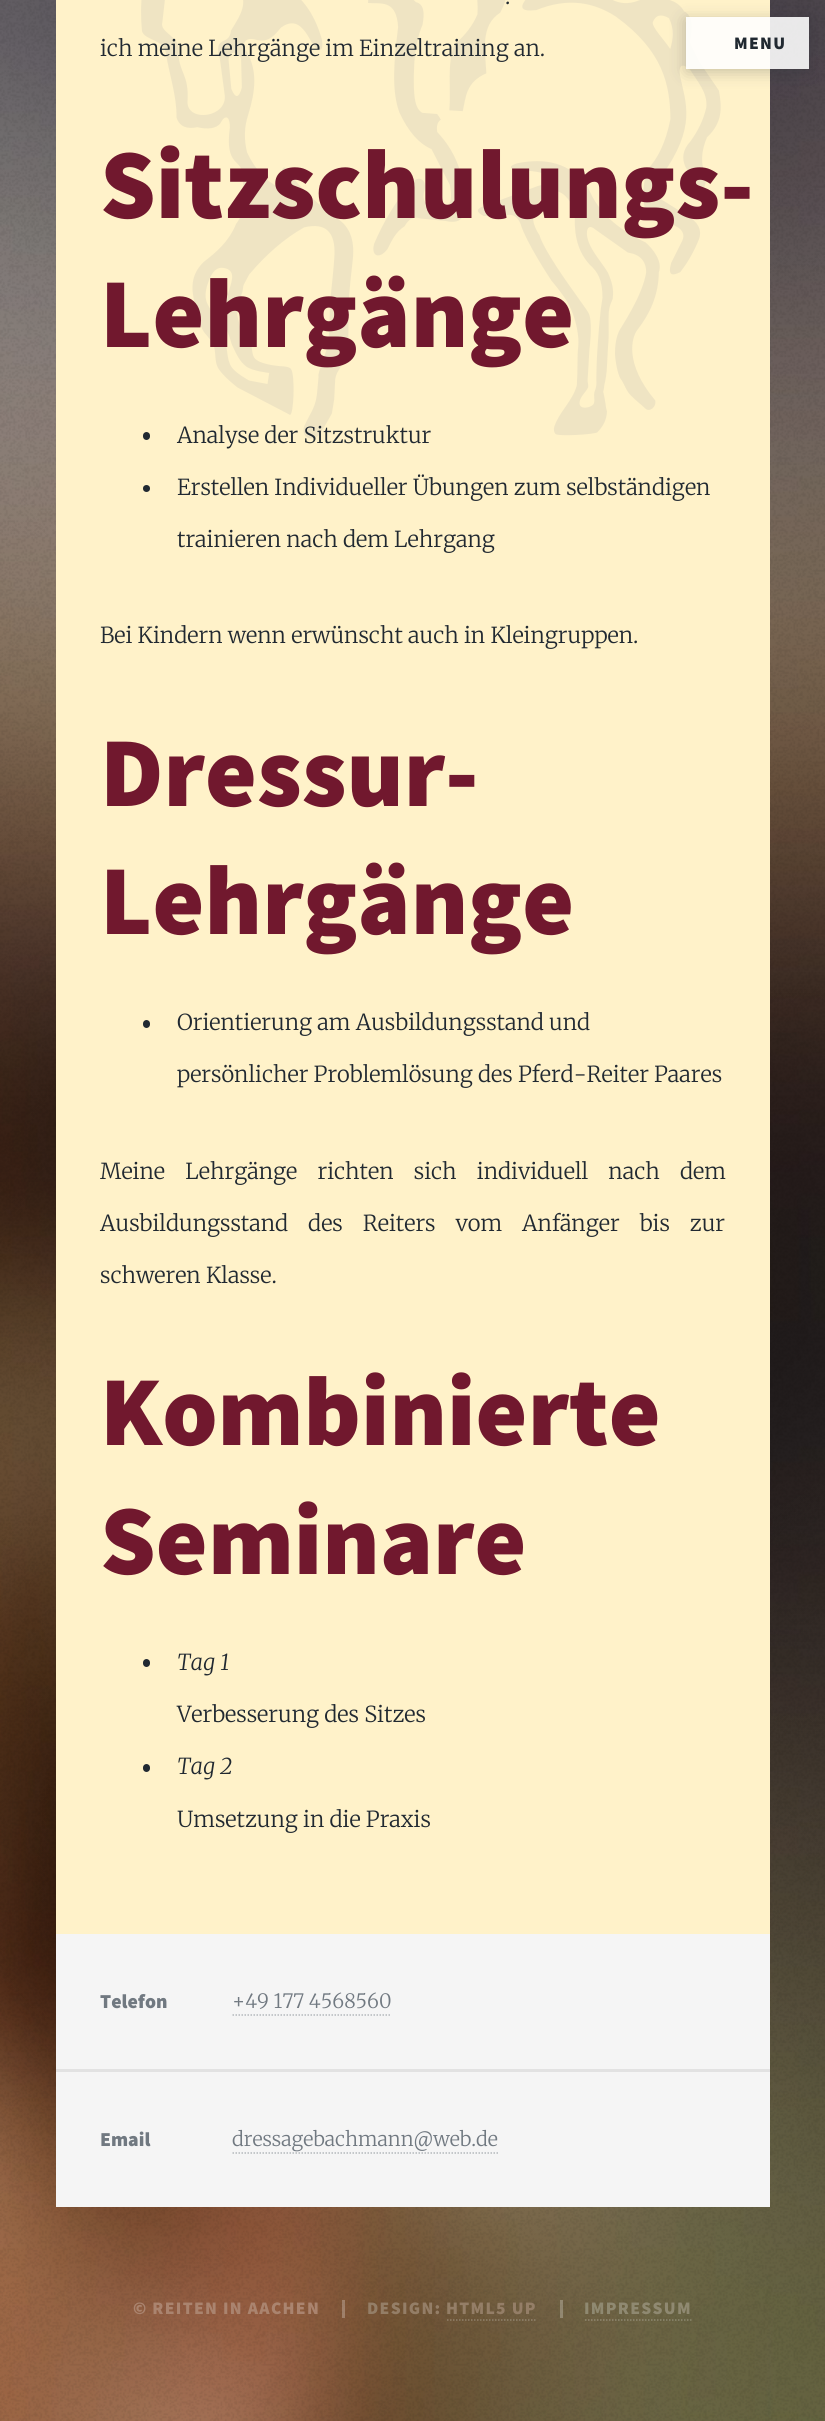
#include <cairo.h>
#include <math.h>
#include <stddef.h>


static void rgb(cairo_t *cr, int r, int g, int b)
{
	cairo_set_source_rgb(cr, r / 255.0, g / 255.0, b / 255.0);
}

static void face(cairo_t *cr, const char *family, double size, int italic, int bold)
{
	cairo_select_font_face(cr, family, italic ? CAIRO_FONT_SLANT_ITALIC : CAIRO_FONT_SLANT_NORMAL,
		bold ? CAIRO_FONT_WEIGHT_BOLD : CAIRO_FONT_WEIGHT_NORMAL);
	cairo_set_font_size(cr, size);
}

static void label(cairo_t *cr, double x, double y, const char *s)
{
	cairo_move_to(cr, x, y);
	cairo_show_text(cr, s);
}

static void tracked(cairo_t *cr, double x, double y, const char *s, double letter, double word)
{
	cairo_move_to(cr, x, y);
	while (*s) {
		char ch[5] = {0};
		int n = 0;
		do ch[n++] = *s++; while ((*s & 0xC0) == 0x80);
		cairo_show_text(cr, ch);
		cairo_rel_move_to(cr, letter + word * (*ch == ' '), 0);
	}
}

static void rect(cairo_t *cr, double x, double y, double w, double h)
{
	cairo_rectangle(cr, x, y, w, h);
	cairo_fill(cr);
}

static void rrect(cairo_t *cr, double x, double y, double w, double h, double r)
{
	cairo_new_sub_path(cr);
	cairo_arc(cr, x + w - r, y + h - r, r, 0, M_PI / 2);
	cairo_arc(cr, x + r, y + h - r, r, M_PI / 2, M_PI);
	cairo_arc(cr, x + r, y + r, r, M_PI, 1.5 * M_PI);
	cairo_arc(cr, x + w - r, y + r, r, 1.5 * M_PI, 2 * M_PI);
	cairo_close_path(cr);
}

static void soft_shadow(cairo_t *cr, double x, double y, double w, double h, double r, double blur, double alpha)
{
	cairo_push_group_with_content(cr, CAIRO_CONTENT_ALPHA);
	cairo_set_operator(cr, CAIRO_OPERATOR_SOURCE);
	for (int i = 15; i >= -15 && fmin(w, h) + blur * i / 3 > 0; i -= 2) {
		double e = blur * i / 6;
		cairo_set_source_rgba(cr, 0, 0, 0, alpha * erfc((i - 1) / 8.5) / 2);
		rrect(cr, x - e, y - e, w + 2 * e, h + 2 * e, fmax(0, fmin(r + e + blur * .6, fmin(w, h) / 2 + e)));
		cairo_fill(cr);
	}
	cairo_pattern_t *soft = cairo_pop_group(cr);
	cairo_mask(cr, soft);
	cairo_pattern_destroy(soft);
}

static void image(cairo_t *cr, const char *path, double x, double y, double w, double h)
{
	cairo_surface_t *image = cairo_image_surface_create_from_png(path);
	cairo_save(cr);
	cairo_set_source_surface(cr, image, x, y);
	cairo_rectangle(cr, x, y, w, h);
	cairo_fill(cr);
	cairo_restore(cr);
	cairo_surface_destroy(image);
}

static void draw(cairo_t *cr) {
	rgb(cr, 255, 255, 255);
	cairo_paint(cr);
	image(cr, "image0.png", 0, 0, 825, 2421);
	rgb(cr, 255, 242, 201);
	rect(cr, 56, 0, 714, 1934);
	image(cr, "image1.png", 141, 0, 580, 439);
	face(cr, "Merriweather Light", 22, 0, 0);
	rgb(cr, 33, 41, 49);
	tracked(cr, 505, 4, ".", 0, 3);
	label(cr, 100, 56, "ich meine Lehrgänge im Einzeltraining an.");
	face(cr, "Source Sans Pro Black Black", 99, 0, 0);
	rgb(cr, 113, 24, 46);
	label(cr, 100, 218, "Sitzschulungs-");
	label(cr, 100, 347, "Lehrgänge");
	rgb(cr, 33, 41, 49);
	rrect(cr, 143, 432, 7, 8, 3.5);
	cairo_fill(cr);
	face(cr, "Merriweather Light", 22, 0, 0);
	label(cr, 177, 443, "Analyse der Sitzstruktur");
	cairo_new_path(cr);
	cairo_arc(cr, 146.5, 488.5, 3.5, 0, 2 * M_PI);
	cairo_fill(cr);
	label(cr, 177, 495, "Erstellen Individueller Übungen zum selbständigen");
	label(cr, 177, 547, "trainieren nach dem Lehrgang");
	label(cr, 100, 643, "Bei Kindern wenn erwünscht auch in Kleingruppen.");
	face(cr, "Source Sans Pro Black Black", 99, 0, 0);
	rgb(cr, 113, 24, 46);
	label(cr, 100, 806, "Dressur-");
	label(cr, 100, 934, "Lehrgänge");
	rgb(cr, 33, 41, 49);
	rrect(cr, 143, 1020, 7, 8, 3.5);
	cairo_fill(cr);
	face(cr, "Merriweather Light", 22, 0, 0);
	label(cr, 177, 1030, "Orientierung am Ausbildungsstand und");
	label(cr, 177, 1082, "persönlicher Problemlösung des Pferd-Reiter Paares");
	tracked(cr, 100, 1179, "Meine Lehrgänge richten sich individuell nach dem", 0, 15);
	tracked(cr, 100, 1231, "Ausbildungsstand des Reiters vom Anfänger bis zur", 0, 14.75);
	label(cr, 100, 1283, "schweren Klasse.");
	face(cr, "Source Sans Pro Black Black", 99, 0, 0);
	rgb(cr, 113, 24, 46);
	label(cr, 100, 1445, "Kombinierte");
	label(cr, 100, 1574, "Seminare");
	rgb(cr, 33, 41, 49);
	rrect(cr, 143, 1659, 7, 8, 3.5);
	cairo_fill(cr);
	face(cr, "Merriweather Light", 22, 1, 0);
	label(cr, 177, 1670, "Tag 1");
	face(cr, "Merriweather Light", 22, 0, 0);
	label(cr, 177, 1722, "Verbesserung des Sitzes");
	rrect(cr, 143, 1764, 7, 8, 3.5);
	cairo_fill(cr);
	face(cr, "Merriweather Light", 22, 1, 0);
	label(cr, 177, 1774, "Tag 2");
	face(cr, "Merriweather Light", 22, 0, 0);
	label(cr, 177, 1827, "Umsetzung in die Praxis");
	cairo_save(cr);
	cairo_set_fill_rule(cr, CAIRO_FILL_RULE_EVEN_ODD);
	cairo_new_path(cr);
	cairo_move_to(cr, 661, 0);
	cairo_line_to(cr, 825, 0);
	cairo_line_to(cr, 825, 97);
	cairo_line_to(cr, 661, 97);
	cairo_close_path(cr);
	cairo_move_to(cr, 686, 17);
	cairo_line_to(cr, 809, 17);
	cairo_line_to(cr, 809, 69);
	cairo_line_to(cr, 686, 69);
	cairo_close_path(cr);
	cairo_clip(cr);
	rgb(cr, 30, 37, 45);
	soft_shadow(cr, 686, 20, 123, 52, 0, 8, 0.25);
	cairo_restore(cr);
	cairo_set_source_rgba(cr, 1, 1, 1, 0.88);
	rect(cr, 686, 17, 123, 52);
	face(cr, "Source Sans Pro Black Black", 17.6, 0, 0);
	rgb(cr, 33, 41, 49);
	tracked(cr, 734, 49, "MENU", 1.3, 0);
	rgb(cr, 245, 245, 245);
	rect(cr, 56, 1934, 714, 273);
	face(cr, "Source Sans Pro Black Black", 19.75, 0, 0);
	rgb(cr, 113, 121, 129);
	label(cr, 100, 2008, "Telefon");
	face(cr, "Merriweather Light", 19.75, 0, 0);
	label(cr, 232, 2008, "+49 177 4568560");
	cairo_new_path(cr);
	cairo_move_to(cr, 232.5, 2015);
	cairo_line_to(cr, 391.5, 2015);
	rgb(cr, 179, 183, 187);
	cairo_set_line_width(cr, 1.5);
	cairo_set_dash(cr, (double[]){1.5, 1.5}, 2, 0);
	cairo_stroke(cr);
	rgb(cr, 226, 226, 226);
	rect(cr, 56, 2069, 714, 3);
	face(cr, "Source Sans Pro Black Black", 19.75, 0, 0);
	rgb(cr, 113, 121, 129);
	label(cr, 100, 2146, "Email");
	face(cr, "Merriweather Light", 19.75, 0, 0);
	label(cr, 232, 2146, "dressagebachmann@web.de");
	cairo_new_path(cr);
	cairo_move_to(cr, 232.5, 2153);
	cairo_line_to(cr, 498, 2153);
	rgb(cr, 179, 183, 187);
	cairo_stroke(cr);
	face(cr, "Source Sans Pro Black Black", 17.6, 0, 0);
	rgb(cr, 170, 132, 111);
	tracked(cr, 133, 2314, "© REITEN IN AACHEN", 1.3, 0);
	cairo_set_source_rgba(cr, 1, 1, 1, 0.25);
	rect(cr, 342, 2300, 3, 18);
	rgb(cr, 148, 126, 103);
	tracked(cr, 367, 2314, "DESIGN:", 1.3, 0);
	tracked(cr, 446, 2314, "HTML5 UP", 1.3, 0);
	cairo_new_path(cr);
	cairo_move_to(cr, 447, 2320);
	cairo_line_to(cr, 537, 2320);
	cairo_set_source_rgba(cr, 1, 1, 1, 0.25);
	cairo_stroke(cr);
	rect(cr, 560, 2300, 3, 18);
	rgb(cr, 143, 137, 113);
	tracked(cr, 584, 2314, "IMPRESSUM", 1.3, 0);
	cairo_new_path(cr);
	cairo_move_to(cr, 585, 2320);
	cairo_line_to(cr, 691.5, 2320);
	cairo_set_source_rgba(cr, 1, 1, 1, 0.25);
	cairo_stroke(cr);
}

int main(void) {
	cairo_surface_t *surface = cairo_image_surface_create(CAIRO_FORMAT_RGB24, 825, 2421);
	cairo_t *cr = cairo_create(surface);
	cairo_font_options_t *options = cairo_font_options_create();
	cairo_font_options_set_hint_metrics(options, CAIRO_HINT_METRICS_OFF);
	cairo_font_options_set_hint_style(options, CAIRO_HINT_STYLE_NONE);
	cairo_set_font_options(cr, options);
	cairo_set_miter_limit(cr, 4);
	draw(cr);
	cairo_surface_write_to_png(surface, "render.png");
	cairo_font_options_destroy(options);
	cairo_destroy(cr);
	cairo_surface_destroy(surface);
	return 0;
}
